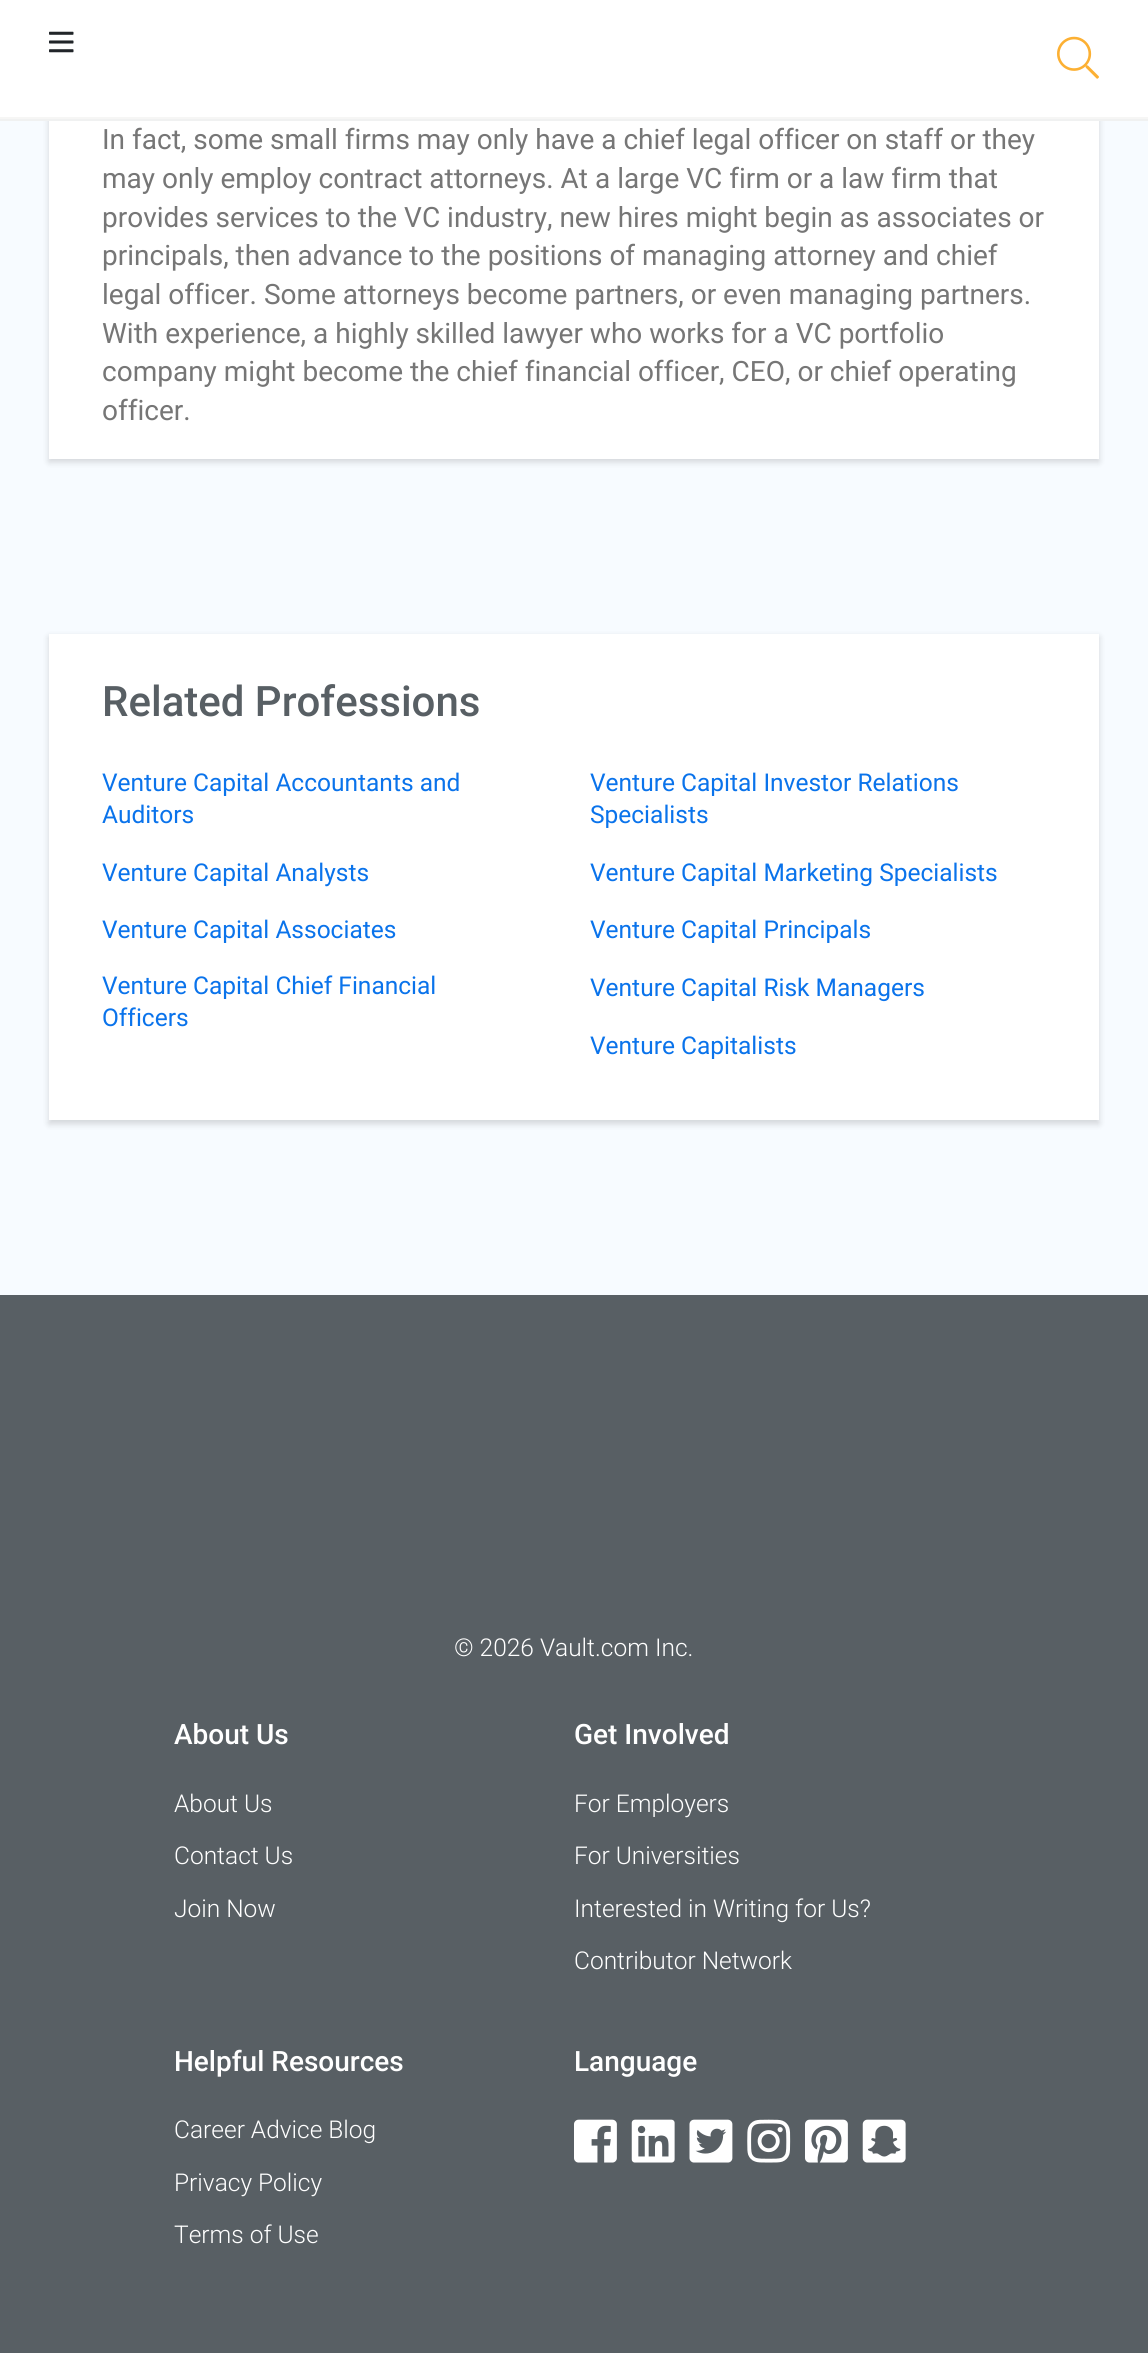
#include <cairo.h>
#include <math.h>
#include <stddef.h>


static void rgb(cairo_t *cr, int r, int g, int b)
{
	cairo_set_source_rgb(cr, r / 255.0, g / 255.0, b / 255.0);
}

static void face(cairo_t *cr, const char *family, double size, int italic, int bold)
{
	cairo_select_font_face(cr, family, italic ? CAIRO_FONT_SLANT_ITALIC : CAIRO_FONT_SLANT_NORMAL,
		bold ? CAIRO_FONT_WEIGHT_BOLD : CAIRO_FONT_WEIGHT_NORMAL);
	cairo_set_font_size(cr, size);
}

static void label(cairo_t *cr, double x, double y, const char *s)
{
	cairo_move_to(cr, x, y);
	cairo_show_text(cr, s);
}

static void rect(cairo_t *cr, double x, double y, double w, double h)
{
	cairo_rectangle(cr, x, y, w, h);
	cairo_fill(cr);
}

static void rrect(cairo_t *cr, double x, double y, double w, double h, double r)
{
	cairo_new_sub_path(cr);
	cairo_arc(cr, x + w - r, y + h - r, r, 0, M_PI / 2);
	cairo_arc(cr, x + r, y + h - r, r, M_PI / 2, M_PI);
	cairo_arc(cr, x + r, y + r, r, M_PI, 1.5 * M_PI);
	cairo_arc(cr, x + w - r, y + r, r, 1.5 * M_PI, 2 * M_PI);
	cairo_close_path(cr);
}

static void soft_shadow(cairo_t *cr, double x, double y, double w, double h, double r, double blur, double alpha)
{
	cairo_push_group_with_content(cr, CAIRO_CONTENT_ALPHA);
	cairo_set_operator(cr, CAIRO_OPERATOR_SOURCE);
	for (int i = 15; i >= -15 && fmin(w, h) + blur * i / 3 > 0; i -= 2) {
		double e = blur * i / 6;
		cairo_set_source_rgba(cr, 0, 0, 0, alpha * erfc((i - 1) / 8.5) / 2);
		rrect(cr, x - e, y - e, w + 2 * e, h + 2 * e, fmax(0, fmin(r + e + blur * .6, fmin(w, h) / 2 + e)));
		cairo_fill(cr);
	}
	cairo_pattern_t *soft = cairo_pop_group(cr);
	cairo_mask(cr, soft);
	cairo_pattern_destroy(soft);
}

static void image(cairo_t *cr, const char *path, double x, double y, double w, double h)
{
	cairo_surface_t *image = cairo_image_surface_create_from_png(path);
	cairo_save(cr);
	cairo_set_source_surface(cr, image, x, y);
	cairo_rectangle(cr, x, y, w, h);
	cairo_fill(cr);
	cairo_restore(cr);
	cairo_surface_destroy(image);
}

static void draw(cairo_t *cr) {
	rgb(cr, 247, 251, 255);
	cairo_paint(cr);
	rgb(cr, 0, 0, 0);
	soft_shadow(cr, 49, -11, 1050, 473, 0, 3.5, 0.15);
	rgb(cr, 255, 255, 255);
	rect(cr, 0, 0, 1148, 117);
	rgb(cr, 240, 241, 241);
	rect(cr, 0, 119, 1148, 2);
	rgb(cr, 246, 246, 245);
	rect(cr, 0, 117, 1148, 2);
	image(cr, "image0.png", 49, 31, 25, 22);
	image(cr, "image1.png", 1057, 36, 42, 43);
	rgb(cr, 255, 255, 255);
	rect(cr, 49, 121, 1050, 338);
	face(cr, "Roboto", 28, 0, 0);
	rgb(cr, 118, 118, 118);
	label(cr, 102, 149, "In fact, some small firms may only have a chief legal officer on staff or they");
	label(cr, 102, 188, "may only employ contract attorneys. At a large VC firm or a law firm that");
	label(cr, 102, 227, "provides services to the VC industry, new hires might begin as associates or");
	label(cr, 102, 265, "principals, then advance to the positions of managing attorney and chief");
	label(cr, 102, 304, "legal officer. Some attorneys become partners, or even managing partners.");
	label(cr, 102, 343, "With experience, a highly skilled lawyer who works for a VC portfolio");
	label(cr, 102, 381, "company might become the chief financial officer, CEO, or chief operating");
	label(cr, 102, 420, "officer.");
	rgb(cr, 0, 0, 0);
	soft_shadow(cr, 49, 637, 1050, 487, 0, 3.5, 0.15);
	rgb(cr, 255, 255, 255);
	rect(cr, 49, 634, 1050, 486);
	face(cr, "Roboto Medium", 42, 0, 0);
	rgb(cr, 88, 95, 100);
	label(cr, 102, 716, "Related Professions");
	face(cr, "Roboto", 24.5, 0, 0);
	rgb(cr, 10, 115, 235);
	label(cr, 102, 791, "Venture Capital Accountants and");
	label(cr, 102, 823, "Auditors");
	label(cr, 590, 791, "Venture Capital Investor Relations");
	label(cr, 590, 823, "Specialists");
	label(cr, 102, 881, "Venture Capital Analysts");
	label(cr, 590, 881, "Venture Capital Marketing Specialists");
	label(cr, 102, 938, "Venture Capital Associates");
	label(cr, 590, 938, "Venture Capital Principals");
	label(cr, 102, 994, "Venture Capital Chief Financial");
	label(cr, 102, 1026, "Officers");
	label(cr, 590, 996, "Venture Capital Risk Managers");
	label(cr, 590, 1054, "Venture Capitalists");
	rgb(cr, 88, 95, 100);
	rect(cr, 0, 1295, 1148, 1058);
	face(cr, "Roboto Light", 24.5, 0, 0);
	rgb(cr, 255, 255, 255);
	label(cr, 454, 1656, "© 2026 Vault.com Inc.");
	face(cr, "Roboto Medium", 28, 0, 0);
	label(cr, 174, 1744, "About Us");
	face(cr, "Roboto Light", 24.5, 0, 0);
	label(cr, 174, 1812, "About Us");
	label(cr, 174, 1864, "Contact Us");
	label(cr, 174, 1917, "Join Now");
	face(cr, "Roboto Medium", 28, 0, 0);
	label(cr, 574, 1744, "Get Involved");
	face(cr, "Roboto Light", 24.5, 0, 0);
	label(cr, 574, 1812, "For Employers");
	label(cr, 574, 1864, "For Universities");
	label(cr, 574, 1917, "Interested in Writing for Us?");
	label(cr, 574, 1969, "Contributor Network");
	face(cr, "Roboto Medium", 28, 0, 0);
	label(cr, 174, 2071, "Helpful Resources");
	face(cr, "Roboto Light", 24.5, 0, 0);
	label(cr, 174, 2138, "Career Advice Blog");
	label(cr, 174, 2191, "Privacy Policy");
	label(cr, 174, 2243, "Terms of Use");
	face(cr, "Roboto Medium", 28, 0, 0);
	label(cr, 574, 2071, "Language");
	image(cr, "image2.png", 574, 2119, 43, 44);
	image(cr, "image3.png", 631, 2119, 44, 44);
	image(cr, "image4.png", 689, 2119, 44, 44);
	image(cr, "image5.png", 747, 2119, 44, 44);
	image(cr, "image6.png", 805, 2119, 43, 44);
	image(cr, "image7.png", 862, 2119, 44, 44);
}

int main(void) {
	cairo_surface_t *surface = cairo_image_surface_create(CAIRO_FORMAT_RGB24, 1148, 2353);
	cairo_t *cr = cairo_create(surface);
	cairo_font_options_t *options = cairo_font_options_create();
	cairo_font_options_set_hint_metrics(options, CAIRO_HINT_METRICS_OFF);
	cairo_font_options_set_hint_style(options, CAIRO_HINT_STYLE_NONE);
	cairo_set_font_options(cr, options);
	cairo_set_miter_limit(cr, 4);
	draw(cr);
	cairo_surface_write_to_png(surface, "render.png");
	cairo_font_options_destroy(options);
	cairo_destroy(cr);
	cairo_surface_destroy(surface);
	return 0;
}
